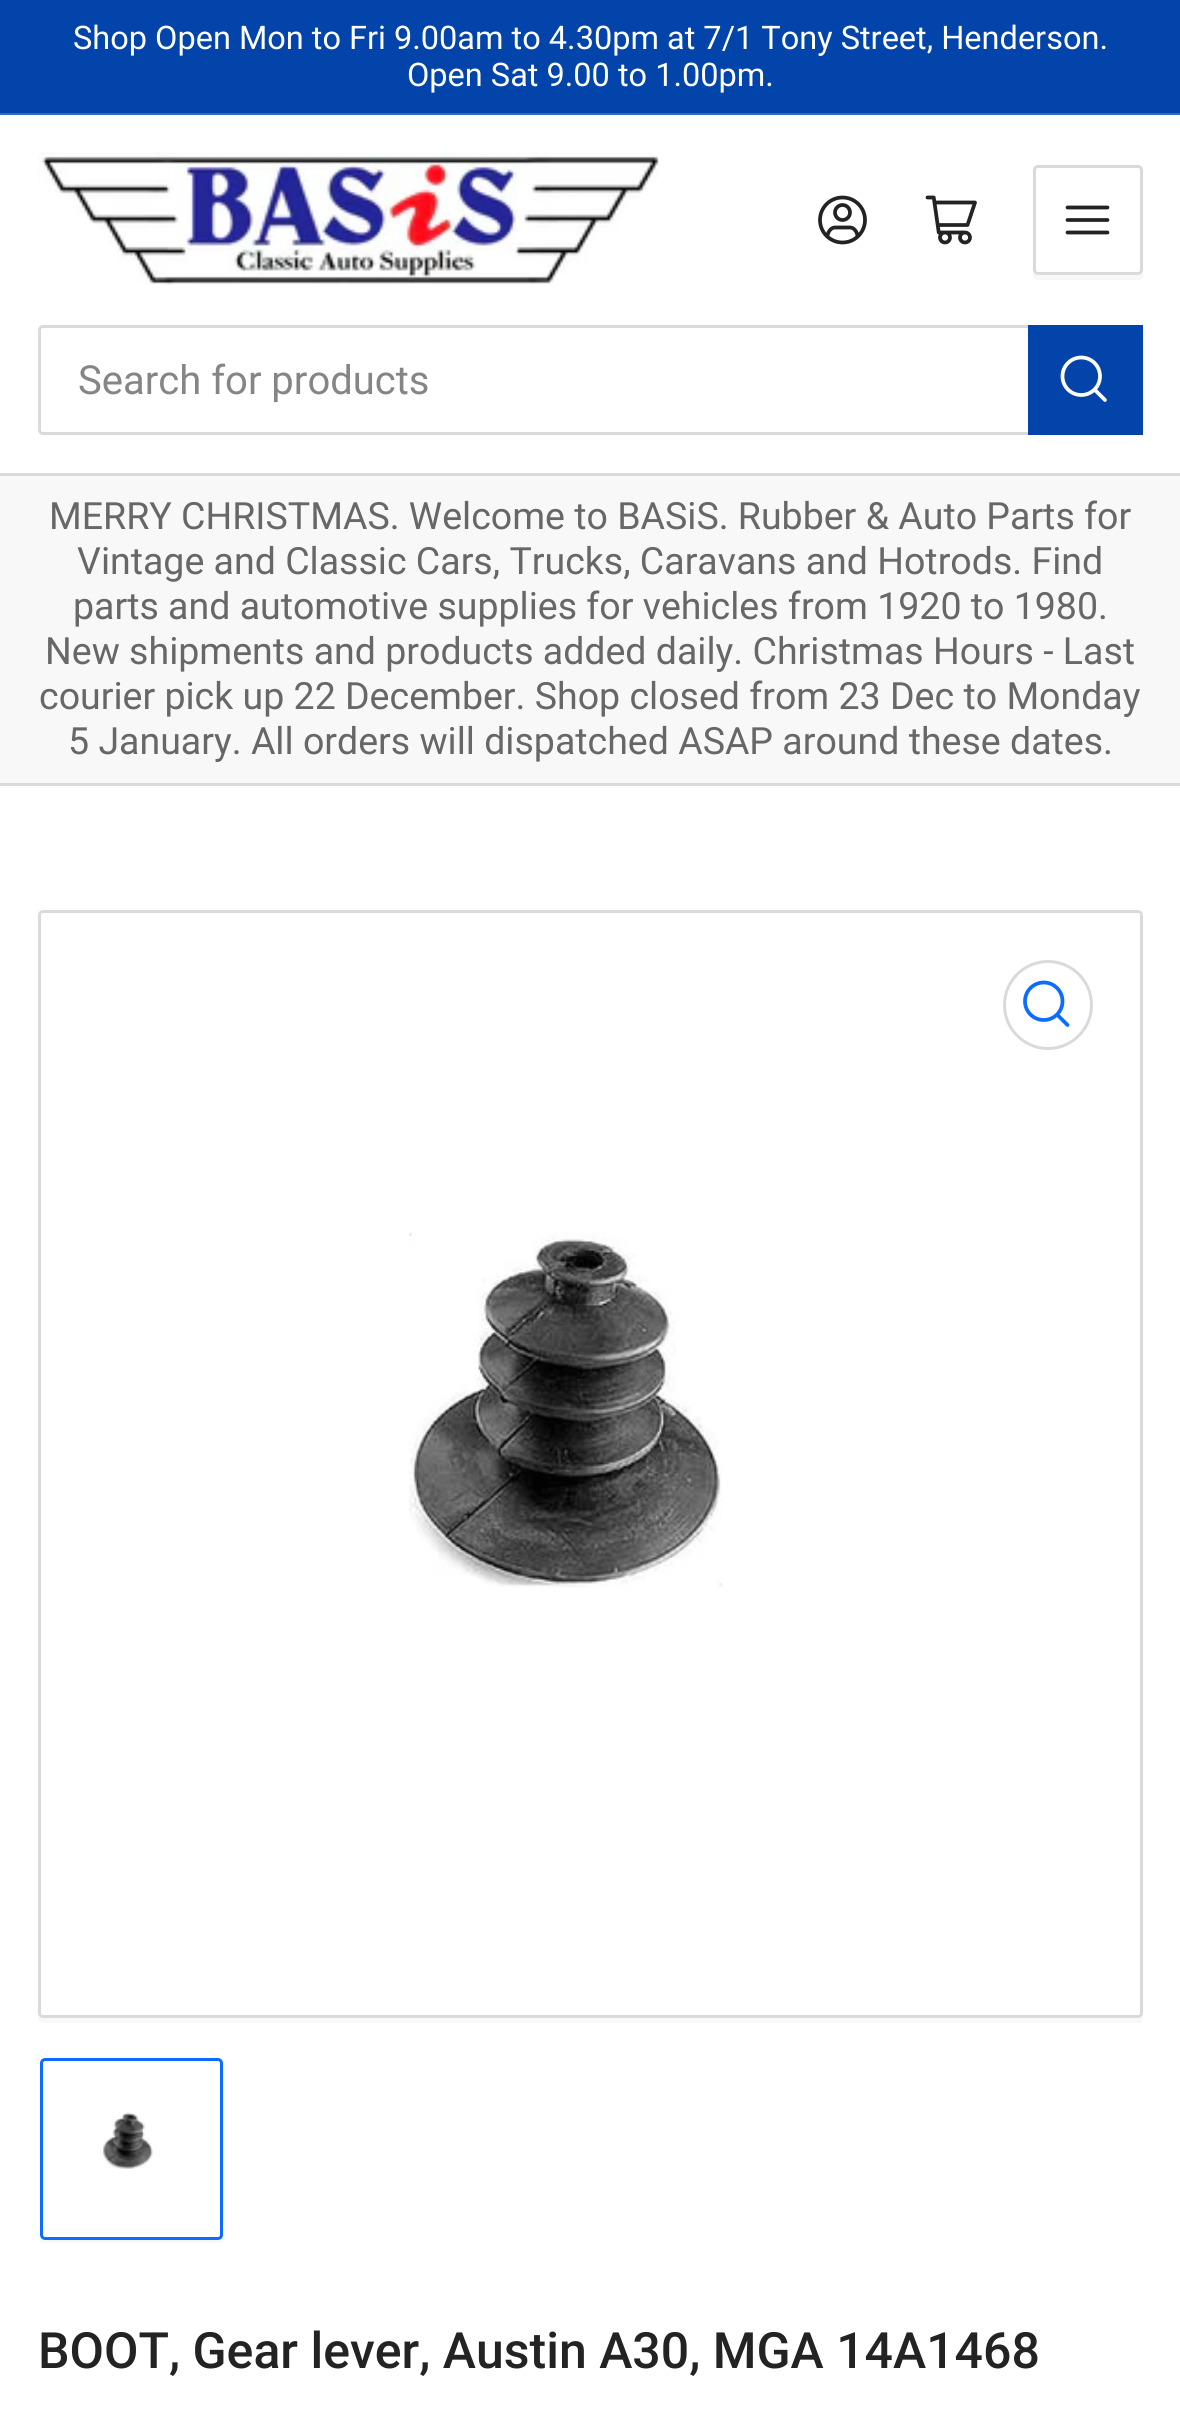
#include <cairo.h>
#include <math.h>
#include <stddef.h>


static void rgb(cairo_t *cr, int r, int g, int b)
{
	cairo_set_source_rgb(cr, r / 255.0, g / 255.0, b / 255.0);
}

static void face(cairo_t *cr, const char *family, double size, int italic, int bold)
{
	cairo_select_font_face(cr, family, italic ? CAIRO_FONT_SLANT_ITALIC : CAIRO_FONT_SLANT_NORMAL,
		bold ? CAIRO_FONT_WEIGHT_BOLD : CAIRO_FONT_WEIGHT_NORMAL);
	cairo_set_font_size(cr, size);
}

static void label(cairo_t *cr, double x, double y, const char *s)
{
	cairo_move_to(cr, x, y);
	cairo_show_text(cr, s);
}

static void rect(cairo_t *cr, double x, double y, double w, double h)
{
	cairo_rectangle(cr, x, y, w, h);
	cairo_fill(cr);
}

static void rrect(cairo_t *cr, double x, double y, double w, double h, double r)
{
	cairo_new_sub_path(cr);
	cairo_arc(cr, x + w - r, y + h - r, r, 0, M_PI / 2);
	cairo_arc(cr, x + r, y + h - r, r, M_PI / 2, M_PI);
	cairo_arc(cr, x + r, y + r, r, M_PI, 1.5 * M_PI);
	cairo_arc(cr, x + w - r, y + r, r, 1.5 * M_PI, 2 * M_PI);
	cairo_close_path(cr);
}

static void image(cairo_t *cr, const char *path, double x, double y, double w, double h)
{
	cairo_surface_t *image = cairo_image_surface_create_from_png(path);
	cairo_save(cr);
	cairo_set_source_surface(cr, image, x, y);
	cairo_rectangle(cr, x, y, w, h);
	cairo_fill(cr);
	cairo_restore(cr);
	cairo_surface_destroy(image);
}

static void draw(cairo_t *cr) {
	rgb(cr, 255, 255, 255);
	cairo_paint(cr);
	rgb(cr, 2, 68, 169);
	rect(cr, 0, 0, 1180, 113);
	rgb(cr, 53, 105, 186);
	rect(cr, 0, 113, 1180, 2);
	face(cr, "Roboto", 32.5, 0, 0);
	rgb(cr, 255, 255, 255);
	label(cr, 73, 49, "Shop Open Mon to Fri 9.00am to 4.30pm at 7/1 Tony Street, Henderson.");
	label(cr, 407, 86, "Open Sat 9.00 to 1.00pm.");
	rgb(cr, 218, 218, 218);
	rect(cr, 0, 473, 1180, 3);
	image(cr, "image0.png", 38, 152, 621, 133);
	image(cr, "image1.png", 818, 195, 49, 50);
	image(cr, "image2.png", 925, 195, 52, 50);
	rgb(cr, 248, 248, 248);
	cairo_new_path(cr);
	cairo_move_to(cr, 1033, 272);
	cairo_line_to(cr, 1033, 275);
	cairo_curve_to(cr, 1033, 278, 1035, 280, 1038, 280);
	cairo_line_to(cr, 1138, 280);
	cairo_curve_to(cr, 1141, 280, 1143, 278, 1143, 275);
	cairo_line_to(cr, 1143, 175);
	cairo_line_to(cr, 1142, 173);
	cairo_line_to(cr, 1142, 270);
	cairo_curve_to(cr, 1142, 273, 1140, 275, 1138, 275);
	cairo_line_to(cr, 1038, 275);
	cairo_curve_to(cr, 1036, 275, 1034, 274, 1033, 272);
	cairo_close_path(cr);
	cairo_fill(cr);
	rrect(cr, 1034.5, 166.5, 107, 107, 3.5);
	rgb(cr, 218, 218, 218);
	cairo_set_line_width(cr, 3);
	cairo_stroke(cr);
	image(cr, "image3.png", 1065, 205, 45, 30);
	rrect(cr, 39.5, 326.5, 1102, 107, 3.5);
	cairo_stroke(cr);
	face(cr, "Roboto", 40, 0, 0);
	rgb(cr, 133, 133, 133);
	label(cr, 78, 394, "Search for products");
	cairo_rectangle(cr, 1029.5, 326.5, 112, 107);
	rgb(cr, 2, 68, 169);
	cairo_stroke(cr);
	rect(cr, 1031, 328, 109, 104);
	image(cr, "image4.png", 1060, 355, 47, 47);
	rgb(cr, 248, 248, 248);
	rect(cr, 0, 476, 1180, 307);
	rgb(cr, 218, 218, 218);
	rect(cr, 0, 783, 1180, 3);
	face(cr, "Roboto", 37.5, 0, 0);
	rgb(cr, 103, 103, 103);
	label(cr, 49, 529, "MERRY CHRISTMAS. Welcome to BASiS. Rubber & Auto Parts for");
	label(cr, 77, 574, "Vintage and Classic Cars, Trucks, Caravans and Hotrods. Find");
	label(cr, 73, 619, "parts and automotive supplies for vehicles from 1920 to 1980.");
	label(cr, 45, 664, "New shipments and products added daily. Christmas Hours - Last");
	label(cr, 39, 709, "courier pick up 22 December. Shop closed from 23 Dec to Monday");
	label(cr, 68, 754, "5 January. All orders will dispatched ASAP around these dates.");
	rgb(cr, 248, 248, 248);
	cairo_new_path(cr);
	cairo_move_to(cr, 38, 2015);
	cairo_line_to(cr, 38, 2018);
	cairo_curve_to(cr, 38, 2021, 40, 2023, 43, 2023);
	cairo_line_to(cr, 1138, 2023);
	cairo_curve_to(cr, 1141, 2023, 1143, 2021, 1143, 2018);
	cairo_line_to(cr, 1143, 920);
	cairo_line_to(cr, 1142, 918);
	cairo_line_to(cr, 1142, 2012);
	cairo_curve_to(cr, 1142, 2015, 1140, 2018, 1138, 2018);
	cairo_line_to(cr, 42, 2018);
	cairo_curve_to(cr, 41, 2018, 39, 2016, 38, 2015);
	cairo_close_path(cr);
	cairo_fill(cr);
	rgb(cr, 255, 255, 255);
	rrect(cr, 39.5, 911.5, 1102, 1105, 3.5);
	cairo_fill_preserve(cr);
	rgb(cr, 218, 218, 218);
	cairo_stroke(cr);
	cairo_arc(cr, 1048, 1005, 43.5, 0, 2 * M_PI);
	cairo_stroke(cr);
	image(cr, "image5.png", 1023, 980, 47, 47);
	image(cr, "image6.png", 409, 1232, 314, 356);
	cairo_save(cr);
	cairo_rectangle(cr, 38, 2055, 1105, 188);
	cairo_clip(cr);
	rgb(cr, 248, 248, 248);
	cairo_new_path(cr);
	cairo_move_to(cr, 40, 2235);
	cairo_line_to(cr, 40, 2240);
	cairo_curve_to(cr, 40, 2243, 42, 2245, 45, 2245);
	cairo_line_to(cr, 218, 2245);
	cairo_curve_to(cr, 221, 2245, 223, 2243, 223, 2240);
	cairo_line_to(cr, 223, 2068);
	cairo_line_to(cr, 222, 2066);
	cairo_line_to(cr, 222, 2235);
	cairo_curve_to(cr, 222, 2238, 220, 2240, 218, 2240);
	cairo_line_to(cr, 45, 2240);
	cairo_curve_to(cr, 42, 2240, 40, 2238, 40, 2235);
	cairo_close_path(cr);
	cairo_fill(cr);
	cairo_restore(cr);
	rgb(cr, 255, 255, 255);
	rrect(cr, 41.5, 2059.5, 180, 179, 3.5);
	cairo_fill_preserve(cr);
	rgb(cr, 11, 108, 255);
	cairo_stroke(cr);
	image(cr, "image7.png", 103, 2112, 50, 57);
	face(cr, "Roboto Medium", 50, 0, 0);
	rgb(cr, 35, 35, 35);
	label(cr, 38, 2368, "BOOT, Gear lever, Austin A30, MGA 14A1468");
}

int main(void) {
	cairo_surface_t *surface = cairo_image_surface_create(CAIRO_FORMAT_RGB24, 1180, 2423);
	cairo_t *cr = cairo_create(surface);
	cairo_font_options_t *options = cairo_font_options_create();
	cairo_font_options_set_hint_metrics(options, CAIRO_HINT_METRICS_OFF);
	cairo_font_options_set_hint_style(options, CAIRO_HINT_STYLE_NONE);
	cairo_set_font_options(cr, options);
	cairo_set_miter_limit(cr, 4);
	draw(cr);
	cairo_surface_write_to_png(surface, "render.png");
	cairo_font_options_destroy(options);
	cairo_destroy(cr);
	cairo_surface_destroy(surface);
	return 0;
}
